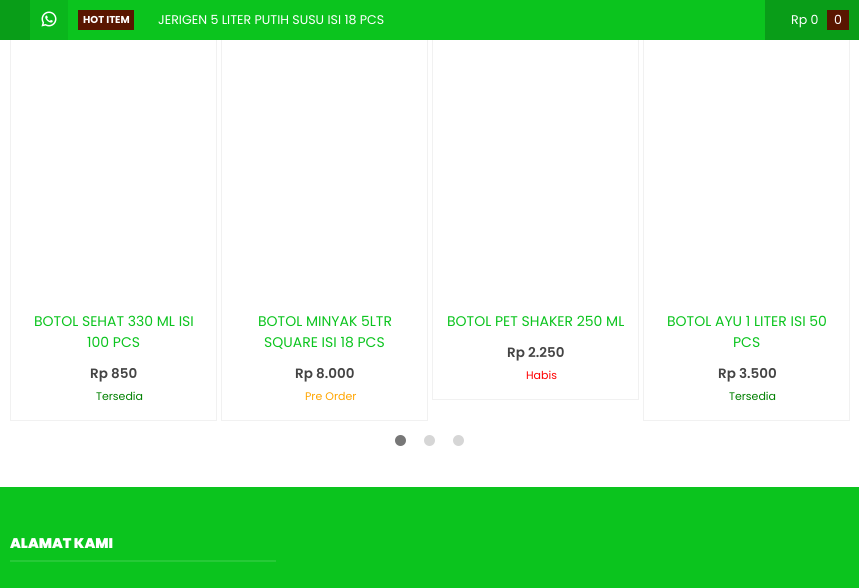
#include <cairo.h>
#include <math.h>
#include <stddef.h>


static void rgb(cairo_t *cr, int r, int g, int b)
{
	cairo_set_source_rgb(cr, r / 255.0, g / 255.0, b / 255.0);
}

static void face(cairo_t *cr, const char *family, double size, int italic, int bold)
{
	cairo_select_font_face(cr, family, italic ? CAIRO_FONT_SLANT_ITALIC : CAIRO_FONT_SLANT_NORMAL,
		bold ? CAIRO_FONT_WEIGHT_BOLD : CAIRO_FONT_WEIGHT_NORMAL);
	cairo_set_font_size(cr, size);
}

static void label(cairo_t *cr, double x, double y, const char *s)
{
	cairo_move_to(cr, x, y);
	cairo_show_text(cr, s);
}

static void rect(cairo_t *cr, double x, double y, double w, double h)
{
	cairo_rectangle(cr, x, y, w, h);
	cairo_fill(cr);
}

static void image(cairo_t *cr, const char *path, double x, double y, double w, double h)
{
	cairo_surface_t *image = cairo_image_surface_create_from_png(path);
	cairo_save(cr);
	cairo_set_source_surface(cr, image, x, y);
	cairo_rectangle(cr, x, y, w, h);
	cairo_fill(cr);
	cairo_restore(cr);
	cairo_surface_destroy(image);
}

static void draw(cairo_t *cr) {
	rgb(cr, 255, 255, 255);
	cairo_paint(cr);
	cairo_rectangle(cr, 10.5, 36.5, 206, 384);
	rgb(cr, 241, 241, 241);
	cairo_set_line_width(cr, 1);
	cairo_stroke(cr);
	cairo_rectangle(cr, 221.5, 36.5, 206, 384);
	cairo_stroke(cr);
	cairo_rectangle(cr, 432.5, 36.5, 206, 363);
	cairo_stroke(cr);
	cairo_rectangle(cr, 643.5, 36.5, 206, 384);
	cairo_stroke(cr);
	rgb(cr, 11, 196, 30);
	rect(cr, 68, 0, 697, 40);
	rgb(cr, 9, 157, 24);
	rect(cr, 0, 0, 30, 40);
	rgb(cr, 10, 182, 28);
	rect(cr, 30, 0, 38, 40);
	image(cr, "image0.png", 41, 11, 16, 16);
	rgb(cr, 89, 22, 0);
	rect(cr, 78, 10, 56, 20);
	face(cr, "Poppins", 10, 0, 1);
	rgb(cr, 255, 255, 255);
	label(cr, 83, 23, "HOT ITEM");
	face(cr, "Poppins", 12.6, 0, 0);
	label(cr, 158, 24, "JERIGEN 5 LITER PUTIH SUSU ISI 18 PCS");
	rgb(cr, 9, 157, 24);
	rect(cr, 765, 0, 94, 40);
	rgb(cr, 255, 255, 255);
	label(cr, 791, 24, "Rp 0");
	rgb(cr, 89, 22, 0);
	rect(cr, 827, 10, 22, 20);
	rgb(cr, 255, 255, 255);
	label(cr, 834, 24, "0");
	face(cr, "Poppins", 14, 0, 0);
	rgb(cr, 11, 196, 30);
	label(cr, 34, 326, "BOTOL SEHAT 330 ML ISI");
	label(cr, 87, 347, "100 PCS");
	face(cr, "Poppins SemiBold", 13.5, 0, 0);
	rgb(cr, 68, 68, 68);
	label(cr, 90, 378, "Rp 850");
	face(cr, "Poppins", 11, 0, 0);
	rgb(cr, 0, 128, 0);
	label(cr, 96, 400, "Tersedia");
	face(cr, "Poppins", 14, 0, 0);
	rgb(cr, 11, 196, 30);
	label(cr, 258, 326, "BOTOL MINYAK 5LTR");
	label(cr, 264, 347, "SQUARE ISI 18 PCS");
	face(cr, "Poppins SemiBold", 13.5, 0, 0);
	rgb(cr, 68, 68, 68);
	label(cr, 295, 378, "Rp 8.000");
	face(cr, "Poppins", 11, 0, 0);
	rgb(cr, 255, 165, 0);
	label(cr, 305, 400, "Pre Order");
	face(cr, "Poppins", 14, 0, 0);
	rgb(cr, 11, 196, 30);
	label(cr, 447, 326, "BOTOL PET SHAKER 250 ML");
	face(cr, "Poppins SemiBold", 13.5, 0, 0);
	rgb(cr, 68, 68, 68);
	label(cr, 507, 357, "Rp 2.250");
	face(cr, "Poppins", 11, 0, 0);
	rgb(cr, 255, 0, 0);
	label(cr, 526, 379, "Habis");
	face(cr, "Poppins", 14, 0, 0);
	rgb(cr, 11, 196, 30);
	label(cr, 667, 326, "BOTOL AYU 1 LITER ISI 50");
	label(cr, 733, 347, "PCS");
	face(cr, "Poppins SemiBold", 13.5, 0, 0);
	rgb(cr, 68, 68, 68);
	label(cr, 718, 378, "Rp 3.500");
	face(cr, "Poppins", 11, 0, 0);
	rgb(cr, 0, 128, 0);
	label(cr, 729, 400, "Tersedia");
	rgb(cr, 119, 119, 119);
	cairo_new_path(cr);
	cairo_arc(cr, 400.5, 440.5, 6.5, 0, 2 * M_PI);
	cairo_fill_preserve(cr);
	rgb(cr, 255, 255, 255);
	cairo_set_line_width(cr, 2);
	cairo_stroke(cr);
	rgb(cr, 214, 214, 214);
	cairo_arc(cr, 429.5, 440.5, 6.5, 0, 2 * M_PI);
	cairo_fill_preserve(cr);
	rgb(cr, 255, 255, 255);
	cairo_stroke(cr);
	rgb(cr, 214, 214, 214);
	cairo_arc(cr, 458.5, 440.5, 6.5, 0, 2 * M_PI);
	cairo_fill_preserve(cr);
	rgb(cr, 255, 255, 255);
	cairo_stroke(cr);
	rgb(cr, 11, 196, 30);
	rect(cr, 0, 487, 859, 101);
	rgb(cr, 38, 202, 55);
	rect(cr, 10, 560, 266, 2);
	face(cr, "Poppins Black", 14, 0, 0);
	rgb(cr, 255, 255, 255);
	label(cr, 10, 548, "ALAMAT KAMI");
}

int main(void) {
	cairo_surface_t *surface = cairo_image_surface_create(CAIRO_FORMAT_RGB24, 859, 588);
	cairo_t *cr = cairo_create(surface);
	cairo_font_options_t *options = cairo_font_options_create();
	cairo_font_options_set_hint_metrics(options, CAIRO_HINT_METRICS_OFF);
	cairo_font_options_set_hint_style(options, CAIRO_HINT_STYLE_NONE);
	cairo_set_font_options(cr, options);
	cairo_set_miter_limit(cr, 4);
	draw(cr);
	cairo_surface_write_to_png(surface, "render.png");
	cairo_font_options_destroy(options);
	cairo_destroy(cr);
	cairo_surface_destroy(surface);
	return 0;
}
